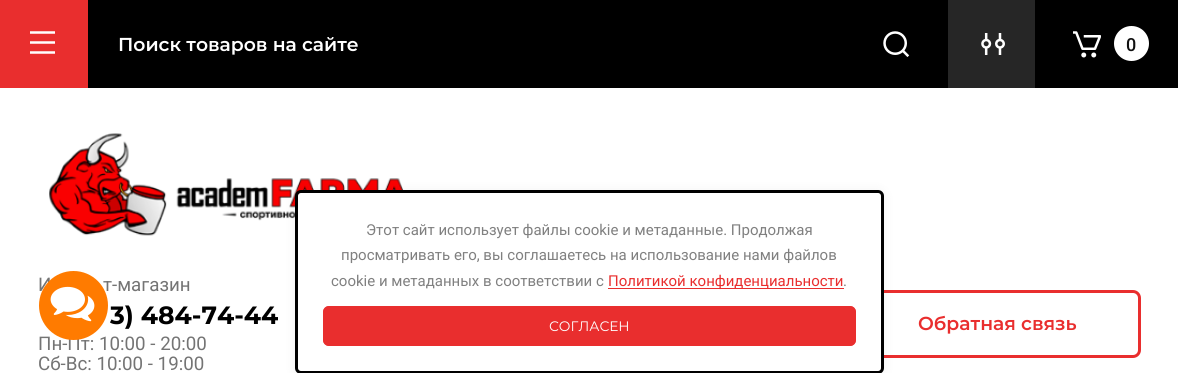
#include <cairo.h>
#include <math.h>
#include <stddef.h>


static void rgb(cairo_t *cr, int r, int g, int b)
{
	cairo_set_source_rgb(cr, r / 255.0, g / 255.0, b / 255.0);
}

static void face(cairo_t *cr, const char *family, double size, int italic, int bold)
{
	cairo_select_font_face(cr, family, italic ? CAIRO_FONT_SLANT_ITALIC : CAIRO_FONT_SLANT_NORMAL,
		bold ? CAIRO_FONT_WEIGHT_BOLD : CAIRO_FONT_WEIGHT_NORMAL);
	cairo_set_font_size(cr, size);
}

static void label(cairo_t *cr, double x, double y, const char *s)
{
	cairo_move_to(cr, x, y);
	cairo_show_text(cr, s);
}

static void rect(cairo_t *cr, double x, double y, double w, double h)
{
	cairo_rectangle(cr, x, y, w, h);
	cairo_fill(cr);
}

static void rrect(cairo_t *cr, double x, double y, double w, double h, double r)
{
	cairo_new_sub_path(cr);
	cairo_arc(cr, x + w - r, y + h - r, r, 0, M_PI / 2);
	cairo_arc(cr, x + r, y + h - r, r, M_PI / 2, M_PI);
	cairo_arc(cr, x + r, y + r, r, M_PI, 1.5 * M_PI);
	cairo_arc(cr, x + w - r, y + r, r, 1.5 * M_PI, 2 * M_PI);
	cairo_close_path(cr);
}

static void soft_shadow(cairo_t *cr, double x, double y, double w, double h, double r, double blur, double alpha)
{
	cairo_push_group_with_content(cr, CAIRO_CONTENT_ALPHA);
	cairo_set_operator(cr, CAIRO_OPERATOR_SOURCE);
	for (int i = 15; i >= -15 && fmin(w, h) + blur * i / 3 > 0; i -= 2) {
		double e = blur * i / 6;
		cairo_set_source_rgba(cr, 0, 0, 0, alpha * erfc((i - 1) / 8.5) / 2);
		rrect(cr, x - e, y - e, w + 2 * e, h + 2 * e, fmax(0, fmin(r + e + blur * .6, fmin(w, h) / 2 + e)));
		cairo_fill(cr);
	}
	cairo_pattern_t *soft = cairo_pop_group(cr);
	cairo_mask(cr, soft);
	cairo_pattern_destroy(soft);
}

static void image(cairo_t *cr, const char *path, double x, double y, double w, double h)
{
	cairo_surface_t *image = cairo_image_surface_create_from_png(path);
	cairo_save(cr);
	cairo_set_source_surface(cr, image, x, y);
	cairo_rectangle(cr, x, y, w, h);
	cairo_fill(cr);
	cairo_restore(cr);
	cairo_surface_destroy(image);
}

static void draw(cairo_t *cr) {
	rgb(cr, 0, 0, 0);
	cairo_paint(cr);
	rgb(cr, 255, 255, 255);
	rect(cr, 0, 88, 1178, 285);
	rgb(cr, 233, 46, 46);
	rect(cr, 0, 0, 88, 88);
	image(cr, "image0.png", 30, 31, 25, 23);
	face(cr, "Montserrat SemiBold", 18.75, 0, 0);
	rgb(cr, 255, 255, 255);
	label(cr, 118, 51, "Поиск товаров на сайте");
	image(cr, "image1.png", 883, 31, 27, 26);
	rgb(cr, 38, 38, 38);
	rect(cr, 948, 0, 87, 88);
	image(cr, "image2.png", 981, 33, 24, 22);
	image(cr, "image3.png", 1073, 31, 28, 27);
	rgb(cr, 255, 255, 255);
	cairo_arc(cr, 1131.5, 43.5, 17.5, 0, 2 * M_PI);
	cairo_fill(cr);
	face(cr, "Roboto Medium", 18, 0, 0);
	rgb(cr, 16, 16, 16);
	label(cr, 1126, 51, "0");
	image(cr, "image4.png", 49, 133, 355, 103);
	face(cr, "Roboto", 18.75, 0, 0);
	rgb(cr, 116, 116, 116);
	label(cr, 38, 291, "И");
	label(cr, 103, 291, "т-магазин");
	face(cr, "Montserrat", 25, 0, 1);
	rgb(cr, 0, 0, 0);
	label(cr, 110, 324, "3) 484-74-44");
	face(cr, "Roboto", 18.75, 0, 0);
	rgb(cr, 116, 116, 116);
	label(cr, 38, 350, "Пн-Пт: 10:00 - 20:00");
	label(cr, 38, 370, "Сб-Вс: 10:00 - 19:00");
	rrect(cr, 855.5, 291.5, 284, 65, 6.5);
	rgb(cr, 233, 46, 46);
	cairo_set_line_width(cr, 3);
	cairo_stroke(cr);
	face(cr, "Montserrat SemiBold", 18.75, 0, 0);
	label(cr, 918, 330, "Обратная связь");
	rgb(cr, 255, 123, 0);
	cairo_new_path(cr);
	cairo_arc(cr, 73.5, 305.5, 34.5, 0, 2 * M_PI);
	cairo_fill(cr);
	image(cr, "image5.png", 50, 286, 45, 36);
	rgb(cr, 0, 0, 0);
	soft_shadow(cr, 295, 191, 589, 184, 6, 6, 0.06);
	rgb(cr, 255, 255, 255);
	rrect(cr, 296.5, 191.5, 586, 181, 4.5);
	cairo_fill_preserve(cr);
	rgb(cr, 0, 0, 0);
	cairo_stroke(cr);
	face(cr, "Roboto", 15, 0, 0);
	rgb(cr, 128, 128, 128);
	label(cr, 366, 235, "Этот сайт использует файлы cookie и метаданные. Продолжая");
	label(cr, 341, 260, "просматривать его, вы соглашаетесь на использование нами файлов");
	label(cr, 331, 286, "cookie и метаданных в соответствии с");
	rgb(cr, 233, 46, 46);
	rect(cr, 608, 288, 236, 1);
	label(cr, 608, 286, "Политикой конфиденциальности");
	rgb(cr, 128, 128, 128);
	label(cr, 843, 286, ".");
	rgb(cr, 233, 46, 46);
	rrect(cr, 323, 306, 533, 40, 6);
	cairo_fill(cr);
	rrect(cr, 324.5, 307.5, 530, 37, 4.5);
	cairo_set_source_rgba(cr, 0.914, 0.18, 0.18, 0.75);
	cairo_stroke(cr);
	face(cr, "Montserrat", 13.75, 0, 0);
	rgb(cr, 255, 255, 255);
	label(cr, 549, 331, "СОГЛАСЕН");
}

int main(void) {
	cairo_surface_t *surface = cairo_image_surface_create(CAIRO_FORMAT_RGB24, 1178, 373);
	cairo_t *cr = cairo_create(surface);
	cairo_font_options_t *options = cairo_font_options_create();
	cairo_font_options_set_hint_metrics(options, CAIRO_HINT_METRICS_OFF);
	cairo_font_options_set_hint_style(options, CAIRO_HINT_STYLE_NONE);
	cairo_set_font_options(cr, options);
	cairo_set_miter_limit(cr, 4);
	draw(cr);
	cairo_surface_write_to_png(surface, "render.png");
	cairo_font_options_destroy(options);
	cairo_destroy(cr);
	cairo_surface_destroy(surface);
	return 0;
}
